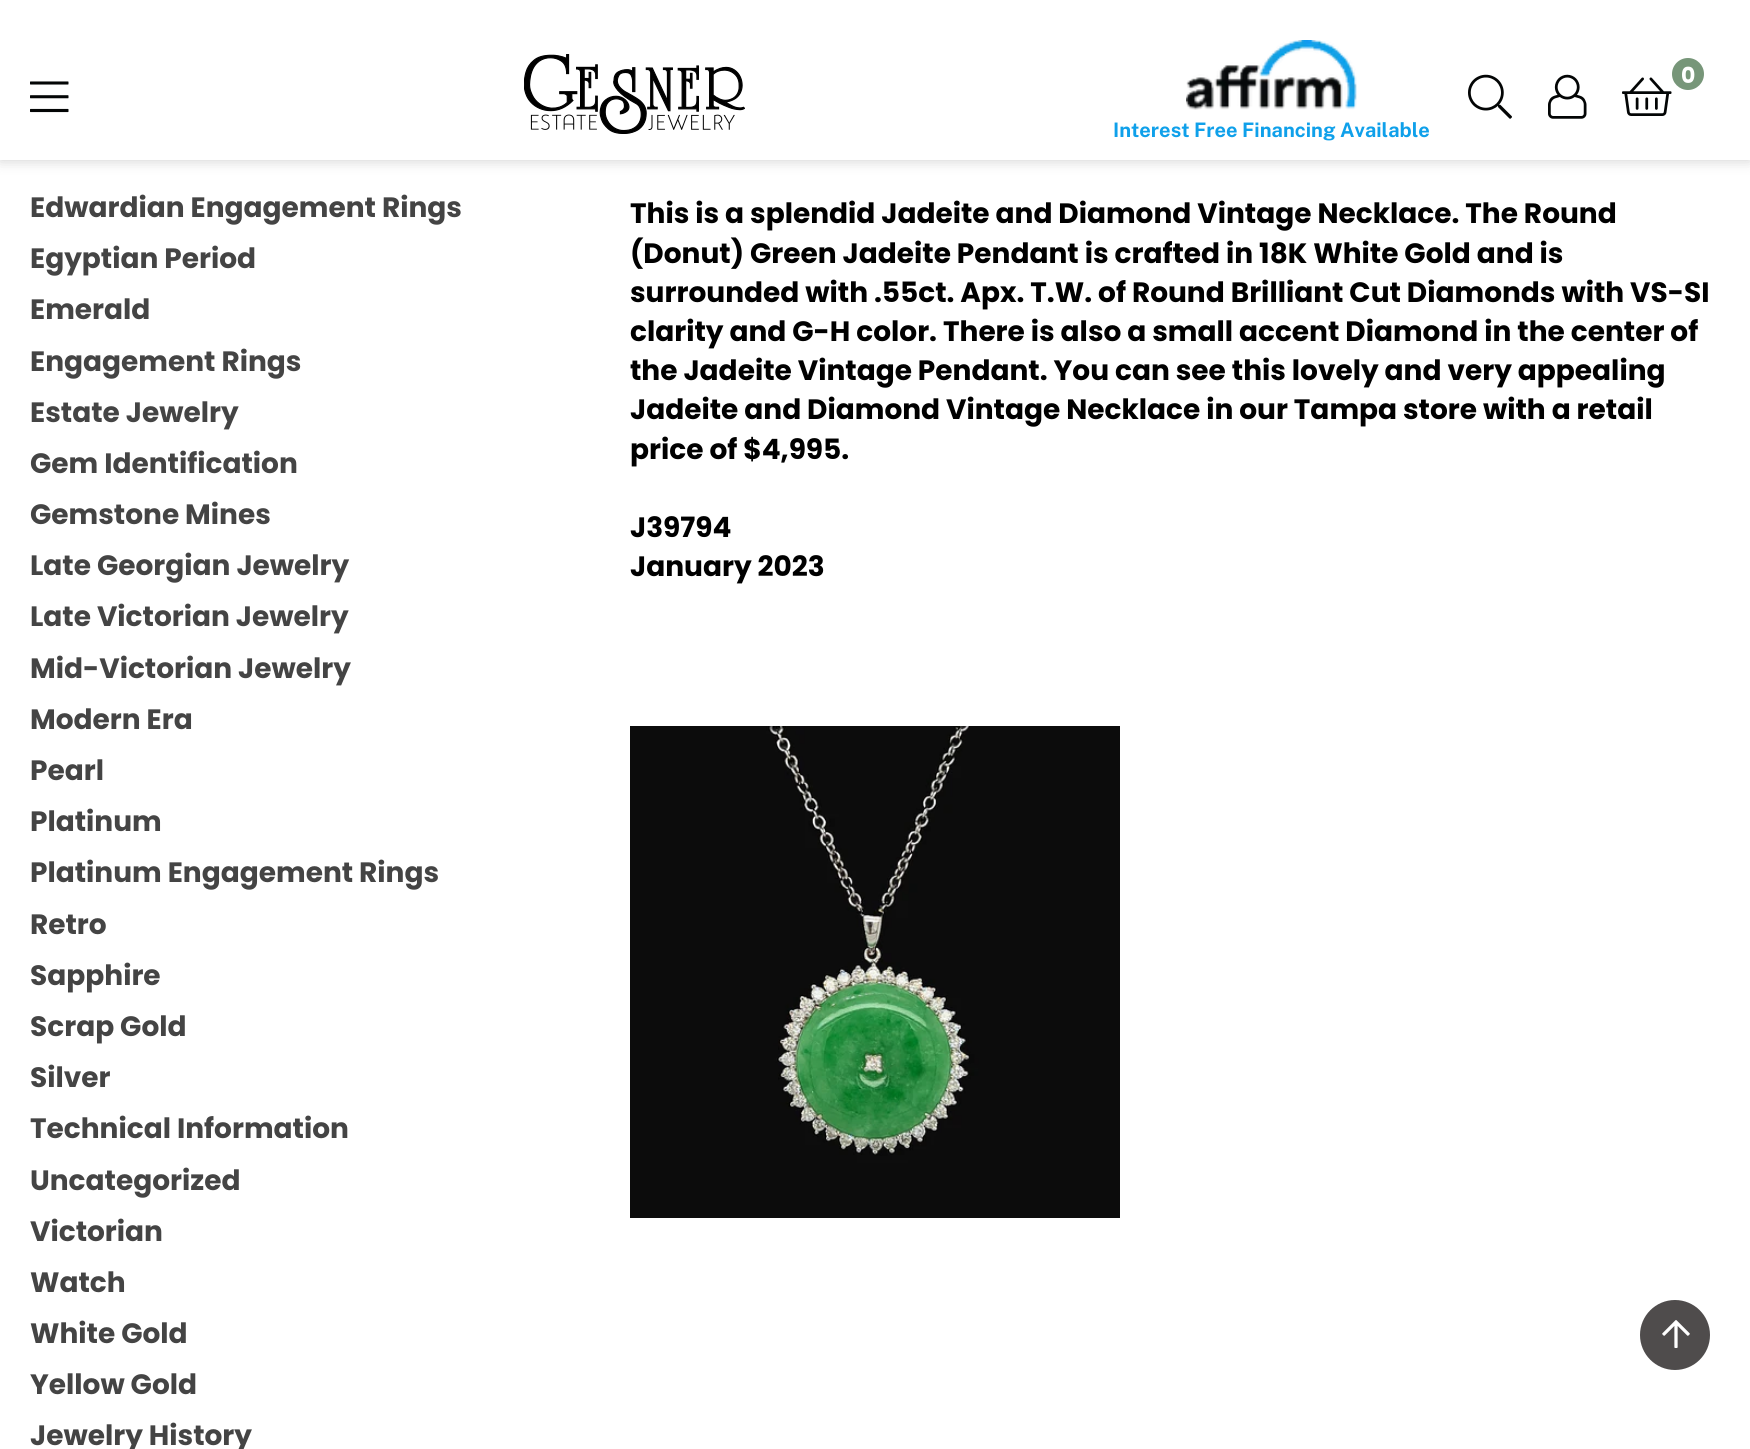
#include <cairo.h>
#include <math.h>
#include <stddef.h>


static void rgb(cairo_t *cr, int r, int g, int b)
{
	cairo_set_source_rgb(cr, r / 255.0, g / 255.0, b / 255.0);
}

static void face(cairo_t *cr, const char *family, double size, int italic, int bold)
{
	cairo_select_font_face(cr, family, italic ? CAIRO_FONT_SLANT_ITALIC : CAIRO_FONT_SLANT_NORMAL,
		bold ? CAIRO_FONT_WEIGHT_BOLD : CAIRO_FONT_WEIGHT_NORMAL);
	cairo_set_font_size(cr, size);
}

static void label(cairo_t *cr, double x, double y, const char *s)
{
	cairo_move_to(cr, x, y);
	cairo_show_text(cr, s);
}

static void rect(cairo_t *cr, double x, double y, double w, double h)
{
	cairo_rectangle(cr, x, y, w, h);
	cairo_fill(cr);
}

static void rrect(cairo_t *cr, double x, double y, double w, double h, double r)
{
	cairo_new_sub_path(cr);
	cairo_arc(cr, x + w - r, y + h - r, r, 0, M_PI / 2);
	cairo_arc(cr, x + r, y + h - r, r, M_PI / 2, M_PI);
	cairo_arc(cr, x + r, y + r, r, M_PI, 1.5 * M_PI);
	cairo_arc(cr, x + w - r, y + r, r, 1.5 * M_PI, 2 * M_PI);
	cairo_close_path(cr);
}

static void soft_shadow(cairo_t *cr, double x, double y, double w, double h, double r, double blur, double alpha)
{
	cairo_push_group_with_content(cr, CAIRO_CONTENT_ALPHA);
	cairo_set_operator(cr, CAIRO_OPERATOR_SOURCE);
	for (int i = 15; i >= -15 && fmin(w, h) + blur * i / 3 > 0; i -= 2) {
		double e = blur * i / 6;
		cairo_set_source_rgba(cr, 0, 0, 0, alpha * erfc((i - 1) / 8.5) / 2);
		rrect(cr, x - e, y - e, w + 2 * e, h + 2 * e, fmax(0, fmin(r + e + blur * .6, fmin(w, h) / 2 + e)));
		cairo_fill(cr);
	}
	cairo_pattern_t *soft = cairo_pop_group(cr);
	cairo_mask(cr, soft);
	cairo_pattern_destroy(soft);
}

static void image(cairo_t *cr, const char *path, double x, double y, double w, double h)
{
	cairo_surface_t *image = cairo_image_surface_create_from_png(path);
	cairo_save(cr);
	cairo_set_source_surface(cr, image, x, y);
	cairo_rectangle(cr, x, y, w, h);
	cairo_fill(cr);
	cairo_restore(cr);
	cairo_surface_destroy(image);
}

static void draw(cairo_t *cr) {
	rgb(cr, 255, 255, 255);
	cairo_paint(cr);
	rgb(cr, 0, 0, 0);
	soft_shadow(cr, 0, 0, 1750, 160, 0, 7, 0.2);
	rgb(cr, 255, 255, 255);
	rect(cr, 0, 0, 1750, 160);
	image(cr, "image0.png", 30, 81, 39, 32);
	image(cr, "image1.png", 524, 54, 221, 80);
	image(cr, "image2.png", 1468, 74, 44, 45);
	image(cr, "image3.png", 1548, 74, 39, 45);
	rgb(cr, 119, 150, 121);
	cairo_arc(cr, 1688, 74, 16, 0, 2 * M_PI);
	cairo_fill(cr);
	face(cr, "Poppins", 22, 0, 1);
	rgb(cr, 255, 255, 255);
	label(cr, 1681, 83, "0");
	image(cr, "image4.png", 1622, 77, 50, 39);
	image(cr, "image5.png", 1186, 40, 171, 70);
	face(cr, "Public Sans", 20, 0, 1);
	rgb(cr, 15, 160, 234);
	label(cr, 1113, 137, "Interest Free Financing Available");
	face(cr, "Poppins", 28, 0, 1);
	rgb(cr, 68, 68, 68);
	label(cr, 30, 217, "Edwardian Engagement Rings");
	label(cr, 30, 268, "Egyptian Period");
	label(cr, 30, 319, "Emerald");
	label(cr, 30, 371, "Engagement Rings");
	label(cr, 30, 422, "Estate Jewelry");
	label(cr, 30, 473, "Gem Identification");
	label(cr, 30, 524, "Gemstone Mines");
	label(cr, 30, 575, "Late Georgian Jewelry");
	label(cr, 30, 626, "Late Victorian Jewelry");
	label(cr, 30, 678, "Mid-Victorian Jewelry");
	label(cr, 30, 729, "Modern Era");
	label(cr, 30, 780, "Pearl");
	label(cr, 30, 831, "Platinum");
	label(cr, 30, 882, "Platinum Engagement Rings");
	label(cr, 30, 934, "Retro");
	label(cr, 30, 985, "Sapphire");
	label(cr, 30, 1036, "Scrap Gold");
	label(cr, 30, 1087, "Silver");
	label(cr, 30, 1138, "Technical Information");
	label(cr, 30, 1190, "Uncategorized");
	label(cr, 30, 1241, "Victorian");
	label(cr, 30, 1292, "Watch");
	label(cr, 30, 1343, "White Gold");
	label(cr, 30, 1394, "Yellow Gold");
	label(cr, 30, 1445, "Jewelry History");
	rgb(cr, 0, 0, 0);
	label(cr, 630, 223, "This is a splendid Jadeite and Diamond Vintage Necklace. The Round");
	label(cr, 630, 263, "(Donut) Green Jadeite Pendant is crafted in 18K White Gold and is");
	label(cr, 630, 302, "surrounded with .55ct. Apx. T.W. of Round Brilliant Cut Diamonds with VS-SI");
	label(cr, 630, 341, "clarity and G-H color. There is also a small accent Diamond in the center of");
	label(cr, 630, 380, "the Jadeite Vintage Pendant. You can see this lovely and very appealing");
	label(cr, 630, 419, "Jadeite and Diamond Vintage Necklace in our Tampa store with a retail");
	label(cr, 630, 459, "price of $4,995.");
	label(cr, 630, 537, "J39794");
	label(cr, 630, 576, "January 2023");
	image(cr, "image6.png", 630, 726, 490, 492);
	rgb(cr, 79, 76, 76);
	cairo_arc(cr, 1675, 1335, 35, 0, 2 * M_PI);
	cairo_fill(cr);
	image(cr, "image7.png", 1662, 1320, 28, 28);
}

int main(void) {
	cairo_surface_t *surface = cairo_image_surface_create(CAIRO_FORMAT_RGB24, 1750, 1449);
	cairo_t *cr = cairo_create(surface);
	cairo_font_options_t *options = cairo_font_options_create();
	cairo_font_options_set_hint_metrics(options, CAIRO_HINT_METRICS_OFF);
	cairo_font_options_set_hint_style(options, CAIRO_HINT_STYLE_NONE);
	cairo_set_font_options(cr, options);
	cairo_set_miter_limit(cr, 4);
	draw(cr);
	cairo_surface_write_to_png(surface, "render.png");
	cairo_font_options_destroy(options);
	cairo_destroy(cr);
	cairo_surface_destroy(surface);
	return 0;
}
